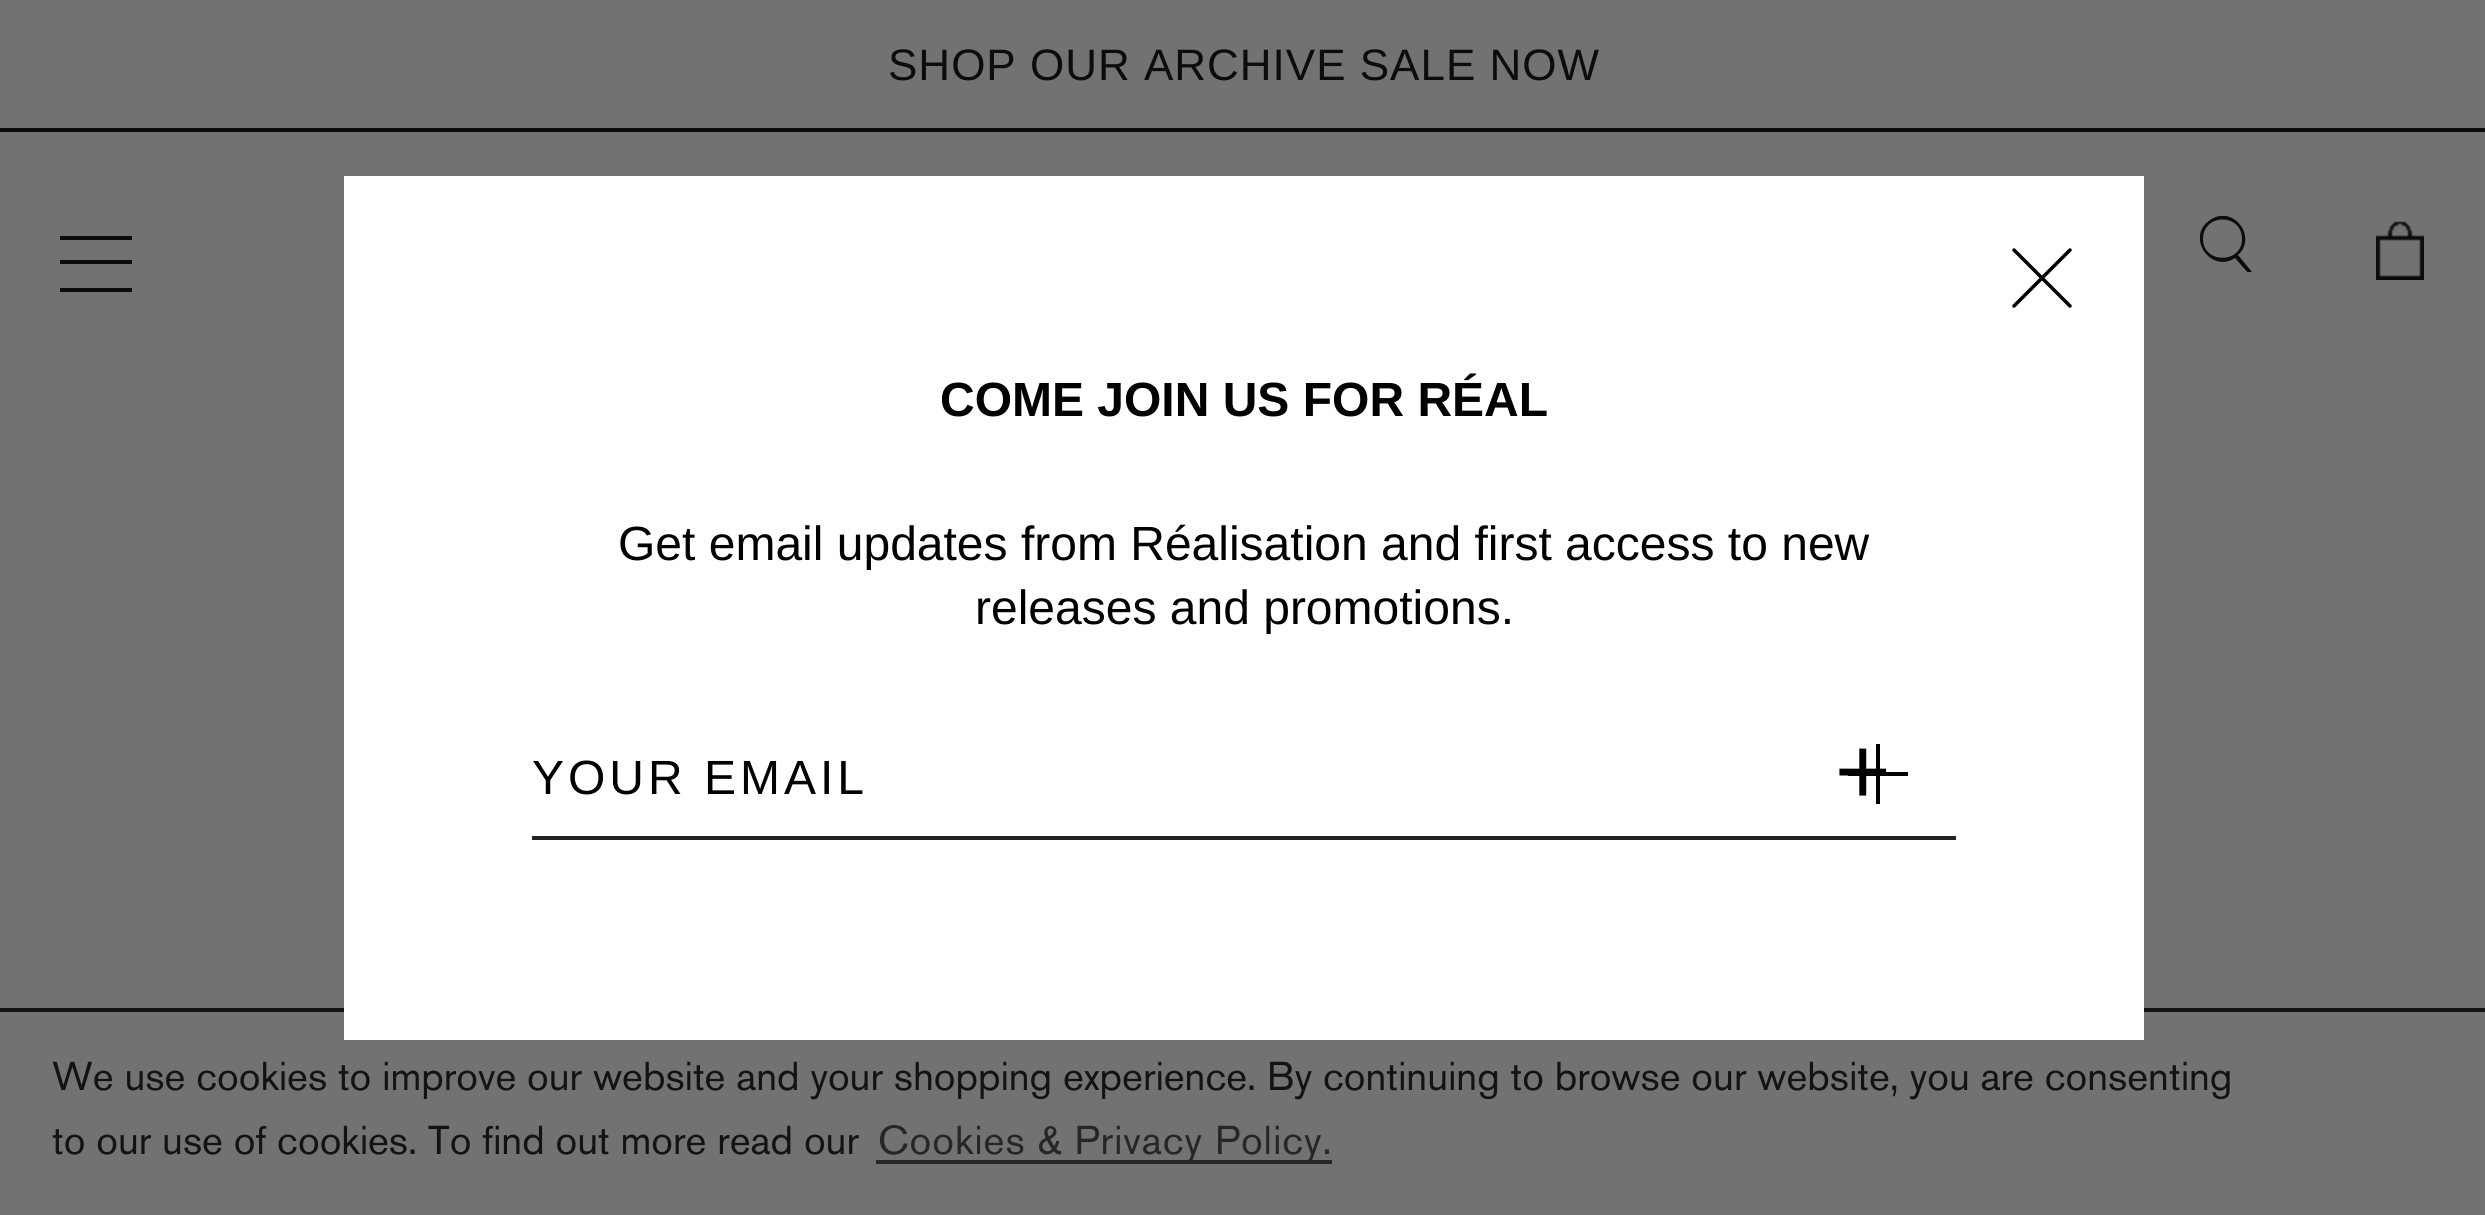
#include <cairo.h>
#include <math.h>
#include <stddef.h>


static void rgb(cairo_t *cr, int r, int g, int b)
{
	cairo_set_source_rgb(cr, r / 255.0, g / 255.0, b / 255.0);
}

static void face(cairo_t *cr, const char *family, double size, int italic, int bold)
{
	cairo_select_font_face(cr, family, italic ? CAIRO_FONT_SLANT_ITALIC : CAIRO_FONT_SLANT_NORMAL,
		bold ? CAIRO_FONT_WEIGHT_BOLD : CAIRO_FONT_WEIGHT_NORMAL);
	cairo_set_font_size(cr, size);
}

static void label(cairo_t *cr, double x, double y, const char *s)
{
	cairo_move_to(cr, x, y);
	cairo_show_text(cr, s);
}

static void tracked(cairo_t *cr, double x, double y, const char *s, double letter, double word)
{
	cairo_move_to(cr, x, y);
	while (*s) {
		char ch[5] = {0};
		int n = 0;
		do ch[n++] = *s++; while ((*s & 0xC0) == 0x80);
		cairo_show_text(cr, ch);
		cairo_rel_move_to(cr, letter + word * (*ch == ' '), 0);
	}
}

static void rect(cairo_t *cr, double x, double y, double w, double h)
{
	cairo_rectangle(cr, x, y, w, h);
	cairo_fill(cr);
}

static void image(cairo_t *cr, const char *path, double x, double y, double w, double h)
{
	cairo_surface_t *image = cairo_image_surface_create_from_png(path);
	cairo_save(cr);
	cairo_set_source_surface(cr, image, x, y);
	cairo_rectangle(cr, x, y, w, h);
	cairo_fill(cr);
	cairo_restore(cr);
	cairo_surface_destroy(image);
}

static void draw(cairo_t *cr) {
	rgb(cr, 114, 114, 114);
	cairo_paint(cr);
	rgb(cr, 12, 12, 12);
	rect(cr, 0, 128, 2485, 4);
	face(cr, "Liberation Sans", 44, 0, 0);
	tracked(cr, 888, 80, "SHOP OUR ARCHIVE SALE NOW", 1, 0);
	rect(cr, 60, 260, 72, 4);
	rect(cr, 60, 236, 72, 4);
	rect(cr, 60, 288, 72, 4);
	cairo_save(cr);
	cairo_rectangle(cr, 2200, 216, 52, 56);
	cairo_clip(cr);
	cairo_new_path(cr);
	cairo_move_to(cr, 2242, 239);
	cairo_curve_to(cr, 2242, 213, 2203, 213, 2203, 239);
	cairo_curve_to(cr, 2203, 264, 2242, 264, 2242, 239);
	cairo_close_path(cr);
	cairo_move_to(cr, 2238, 255);
	cairo_line_to(cr, 2252, 272);
	cairo_line_to(cr, 2249, 274);
	cairo_line_to(cr, 2235, 258);
	cairo_curve_to(cr, 2211, 274, 2185, 237, 2210, 220);
	cairo_curve_to(cr, 2233, 204, 2258, 237, 2238, 255);
	cairo_close_path(cr);
	cairo_fill(cr);
	cairo_restore(cr);
	image(cr, "image0.png", 2376, 221, 48, 59);
	rgb(cr, 19, 19, 19);
	rect(cr, 0, 1008, 2485, 4);
	rgb(cr, 255, 255, 255);
	rect(cr, 344, 176, 1800, 864);
	cairo_new_path(cr);
	cairo_move_to(cr, 2014, 250);
	cairo_line_to(cr, 2070, 306);
	cairo_move_to(cr, 2014, 306);
	cairo_line_to(cr, 2070, 250);
	cairo_close_path(cr);
	rgb(cr, 0, 0, 0);
	cairo_set_line_width(cr, 3.5);
	cairo_set_line_cap(cr, CAIRO_LINE_CAP_ROUND);
	cairo_set_line_join(cr, CAIRO_LINE_JOIN_ROUND);
	cairo_stroke(cr);
	face(cr, "Liberation Sans", 48, 0, 1);
	label(cr, 940, 416, "COME JOIN US FOR RÉAL");
	face(cr, "Liberation Sans", 48, 0, 0);
	label(cr, 618, 560, "Get email updates from Réalisation and first access to new");
	label(cr, 975, 624, "releases and promotions.");
	rgb(cr, 34, 34, 34);
	rect(cr, 532, 836, 1424, 4);
	rgb(cr, 0, 0, 0);
	tracked(cr, 532, 794, "YOUR EMAIL", 4, 0);
	rect(cr, 1876, 744, 4, 60);
	face(cr, "Liberation Mono", 96, 0, 0);
	label(cr, 1834, 804, "+");
	rect(cr, 1848, 772, 60, 4);
	face(cr, "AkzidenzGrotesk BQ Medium", 40, 0, 0);
	rgb(cr, 19, 19, 19);
	label(cr, 52, 1090, "We use cookies to improve our website and your shopping experience. By continuing to browse our website, you are consenting");
	label(cr, 52, 1154, "to our use of cookies. To find out more read our");
	rgb(cr, 38, 38, 38);
	rect(cr, 876, 1160, 456, 4);
	tracked(cr, 878, 1154, "Cookies & Privacy Policy.", 1, 0);
}

int main(void) {
	cairo_surface_t *surface = cairo_image_surface_create(CAIRO_FORMAT_RGB24, 2485, 1215);
	cairo_t *cr = cairo_create(surface);
	cairo_font_options_t *options = cairo_font_options_create();
	cairo_font_options_set_hint_metrics(options, CAIRO_HINT_METRICS_OFF);
	cairo_font_options_set_hint_style(options, CAIRO_HINT_STYLE_NONE);
	cairo_set_font_options(cr, options);
	cairo_set_miter_limit(cr, 4);
	draw(cr);
	cairo_surface_write_to_png(surface, "render.png");
	cairo_font_options_destroy(options);
	cairo_destroy(cr);
	cairo_surface_destroy(surface);
	return 0;
}
